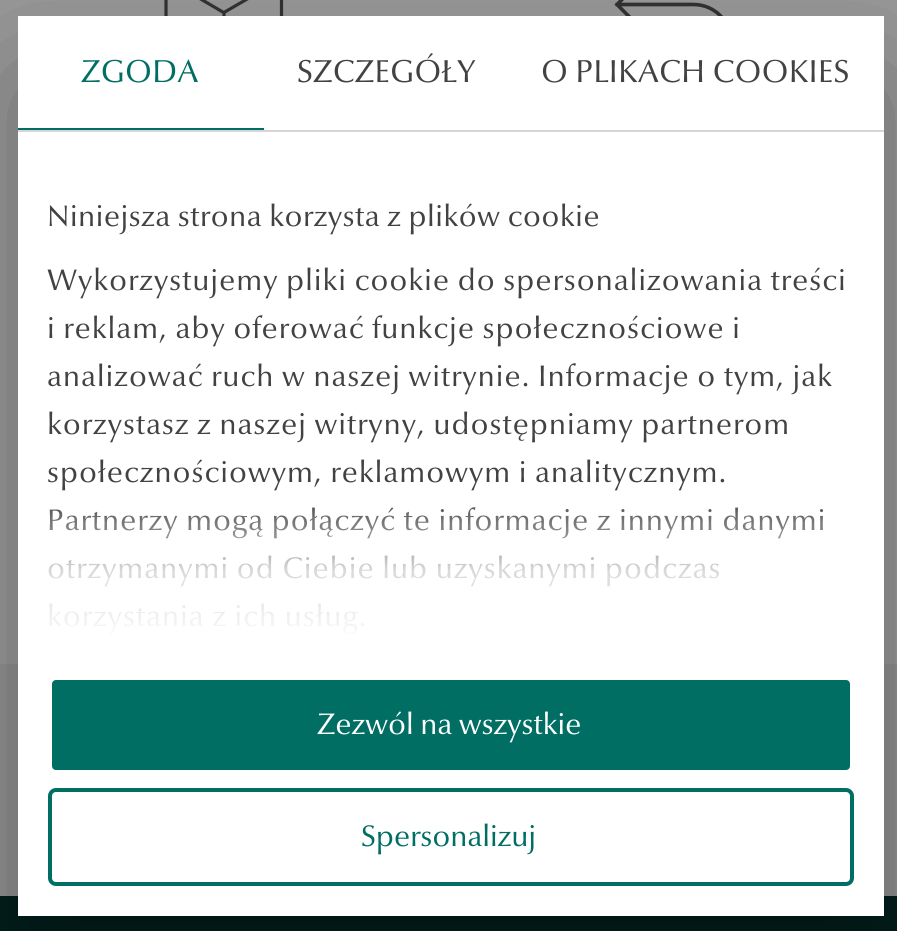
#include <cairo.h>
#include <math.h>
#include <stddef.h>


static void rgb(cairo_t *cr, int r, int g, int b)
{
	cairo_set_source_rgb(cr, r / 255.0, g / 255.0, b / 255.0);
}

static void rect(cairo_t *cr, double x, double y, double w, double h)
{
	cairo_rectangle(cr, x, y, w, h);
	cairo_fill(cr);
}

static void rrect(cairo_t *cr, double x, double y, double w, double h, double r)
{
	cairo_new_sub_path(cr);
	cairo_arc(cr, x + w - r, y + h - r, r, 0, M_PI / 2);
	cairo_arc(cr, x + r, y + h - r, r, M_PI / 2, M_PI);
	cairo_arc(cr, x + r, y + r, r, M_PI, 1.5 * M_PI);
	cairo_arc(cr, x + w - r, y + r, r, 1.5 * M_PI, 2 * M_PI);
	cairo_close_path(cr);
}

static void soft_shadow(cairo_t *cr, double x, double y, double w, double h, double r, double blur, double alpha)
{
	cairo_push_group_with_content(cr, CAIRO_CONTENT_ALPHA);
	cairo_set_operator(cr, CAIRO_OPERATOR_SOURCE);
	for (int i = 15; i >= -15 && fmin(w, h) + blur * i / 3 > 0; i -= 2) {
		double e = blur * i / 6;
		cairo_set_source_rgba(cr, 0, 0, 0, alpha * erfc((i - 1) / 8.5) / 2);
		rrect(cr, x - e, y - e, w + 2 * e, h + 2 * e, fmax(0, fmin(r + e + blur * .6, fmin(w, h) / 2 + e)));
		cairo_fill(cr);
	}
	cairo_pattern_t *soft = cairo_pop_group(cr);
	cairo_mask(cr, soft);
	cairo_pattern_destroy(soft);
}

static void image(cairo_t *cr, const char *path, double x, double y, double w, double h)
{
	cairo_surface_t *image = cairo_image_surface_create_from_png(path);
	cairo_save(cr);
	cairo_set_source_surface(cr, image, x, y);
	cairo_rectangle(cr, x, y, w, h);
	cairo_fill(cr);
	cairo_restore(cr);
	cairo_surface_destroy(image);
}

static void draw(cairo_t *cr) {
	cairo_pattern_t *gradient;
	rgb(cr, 153, 153, 153);
	cairo_paint(cr);
	cairo_new_path(cr);
	cairo_move_to(cr, 166, 46);
	cairo_line_to(cr, 166, -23);
	cairo_move_to(cr, 281.5, 46);
	cairo_line_to(cr, 281.5, -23);
	cairo_move_to(cr, 224, 79.5);
	cairo_line_to(cr, 224, 11.5);
	cairo_move_to(cr, 223, 79.5);
	cairo_line_to(cr, 282.5, 45);
	cairo_move_to(cr, 223, 13);
	cairo_line_to(cr, 282.5, -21.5);
	cairo_move_to(cr, 224.5, 79.5);
	cairo_line_to(cr, 165.5, 45);
	cairo_move_to(cr, 224.5, 13);
	cairo_line_to(cr, 165.5, -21.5);
	cairo_move_to(cr, 253.5, -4.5);
	cairo_line_to(cr, 194.5, -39);
	cairo_move_to(cr, 213, 39);
	cairo_line_to(cr, 193, 27);
	cairo_move_to(cr, 213, 48);
	cairo_line_to(cr, 193, 35.5);
	cairo_move_to(cr, 212.5, 56.5);
	cairo_line_to(cr, 192.5, 44.5);
	cairo_move_to(cr, 223, -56.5);
	cairo_line_to(cr, 282.5, -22);
	cairo_move_to(cr, 224.5, -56.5);
	cairo_line_to(cr, 165.5, -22);
	rgb(cr, 50, 50, 50);
	cairo_set_line_width(cr, 3.2);
	cairo_stroke(cr);
	cairo_new_path(cr);
	cairo_move_to(cr, 615.5, 4.5);
	cairo_line_to(cr, 693.5, 4.5);
	cairo_curve_to(cr, 714.5, 4.5, 731.5, 21.5, 731.5, 43);
	cairo_curve_to(cr, 731.5, 64, 714.5, 81, 693.5, 81);
	cairo_line_to(cr, 646, 81);
	cairo_move_to(cr, 643, -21.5);
	cairo_line_to(cr, 617, 4.5);
	cairo_line_to(cr, 643, 30.5);
	cairo_set_line_width(cr, 3.6);
	cairo_stroke(cr);
	rgb(cr, 145, 145, 145);
	rect(cr, 0, 664, 897, 232);
	rgb(cr, 1, 31, 27);
	rect(cr, 0, 896, 897, 35);
	rgb(cr, 0, 0, 0);
	soft_shadow(cr, 18, 80, 866, 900, 0, 68, 0.3);
	rgb(cr, 255, 255, 255);
	rect(cr, 18, 16, 866, 900);
	rgb(cr, 214, 214, 214);
	rect(cr, 18, 130, 866, 2);
	rgb(cr, 0, 110, 99);
	rect(cr, 18, 128, 246, 2);
	image(cr, "image0.png", 81, 59, 117, 24);
	image(cr, "image1.png", 298, 53, 178, 30);
	image(cr, "image2.png", 542, 59, 306, 24);
	image(cr, "image3.png", 49, 203, 549, 32);
	image(cr, "image4.png", 47, 267, 797, 32);
	image(cr, "image5.png", 49, 315, 689, 32);
	image(cr, "image6.png", 48, 363, 784, 32);
	image(cr, "image7.png", 49, 411, 738, 32);
	image(cr, "image8.png", 48, 459, 677, 32);
	image(cr, "image9.png", 49, 507, 775, 32);
	image(cr, "image10.png", 48, 555, 671, 32);
	image(cr, "image11.png", 49, 603, 316, 31);
	gradient = cairo_pattern_create_linear(437, 646, 437, 496);
	cairo_pattern_add_color_stop_rgba(gradient, 0, 1, 1, 1, 1);
	cairo_pattern_add_color_stop_rgba(gradient, 0.5, 1, 1, 1, 0.8);
	cairo_pattern_add_color_stop_rgba(gradient, 1, 1, 1, 1, 0);
	cairo_set_source(cr, gradient);
	cairo_pattern_destroy(gradient);
	rect(cr, 48, 507, 775, 127);
	rgb(cr, 0, 110, 99);
	rrect(cr, 50, 678, 802, 94, 6);
	cairo_fill_preserve(cr);
	rgb(cr, 255, 255, 255);
	cairo_set_line_width(cr, 4);
	cairo_stroke(cr);
	image(cr, "image12.png", 317, 711, 263, 32);
	rrect(cr, 50, 790, 802, 94, 6);
	rgb(cr, 0, 110, 99);
	cairo_stroke(cr);
	image(cr, "image13.png", 362, 823, 172, 32);
}

int main(void) {
	cairo_surface_t *surface = cairo_image_surface_create(CAIRO_FORMAT_RGB24, 897, 931);
	cairo_t *cr = cairo_create(surface);
	cairo_font_options_t *options = cairo_font_options_create();
	cairo_font_options_set_hint_metrics(options, CAIRO_HINT_METRICS_OFF);
	cairo_font_options_set_hint_style(options, CAIRO_HINT_STYLE_NONE);
	cairo_set_font_options(cr, options);
	cairo_set_miter_limit(cr, 4);
	draw(cr);
	cairo_surface_write_to_png(surface, "render.png");
	cairo_font_options_destroy(options);
	cairo_destroy(cr);
	cairo_surface_destroy(surface);
	return 0;
}
